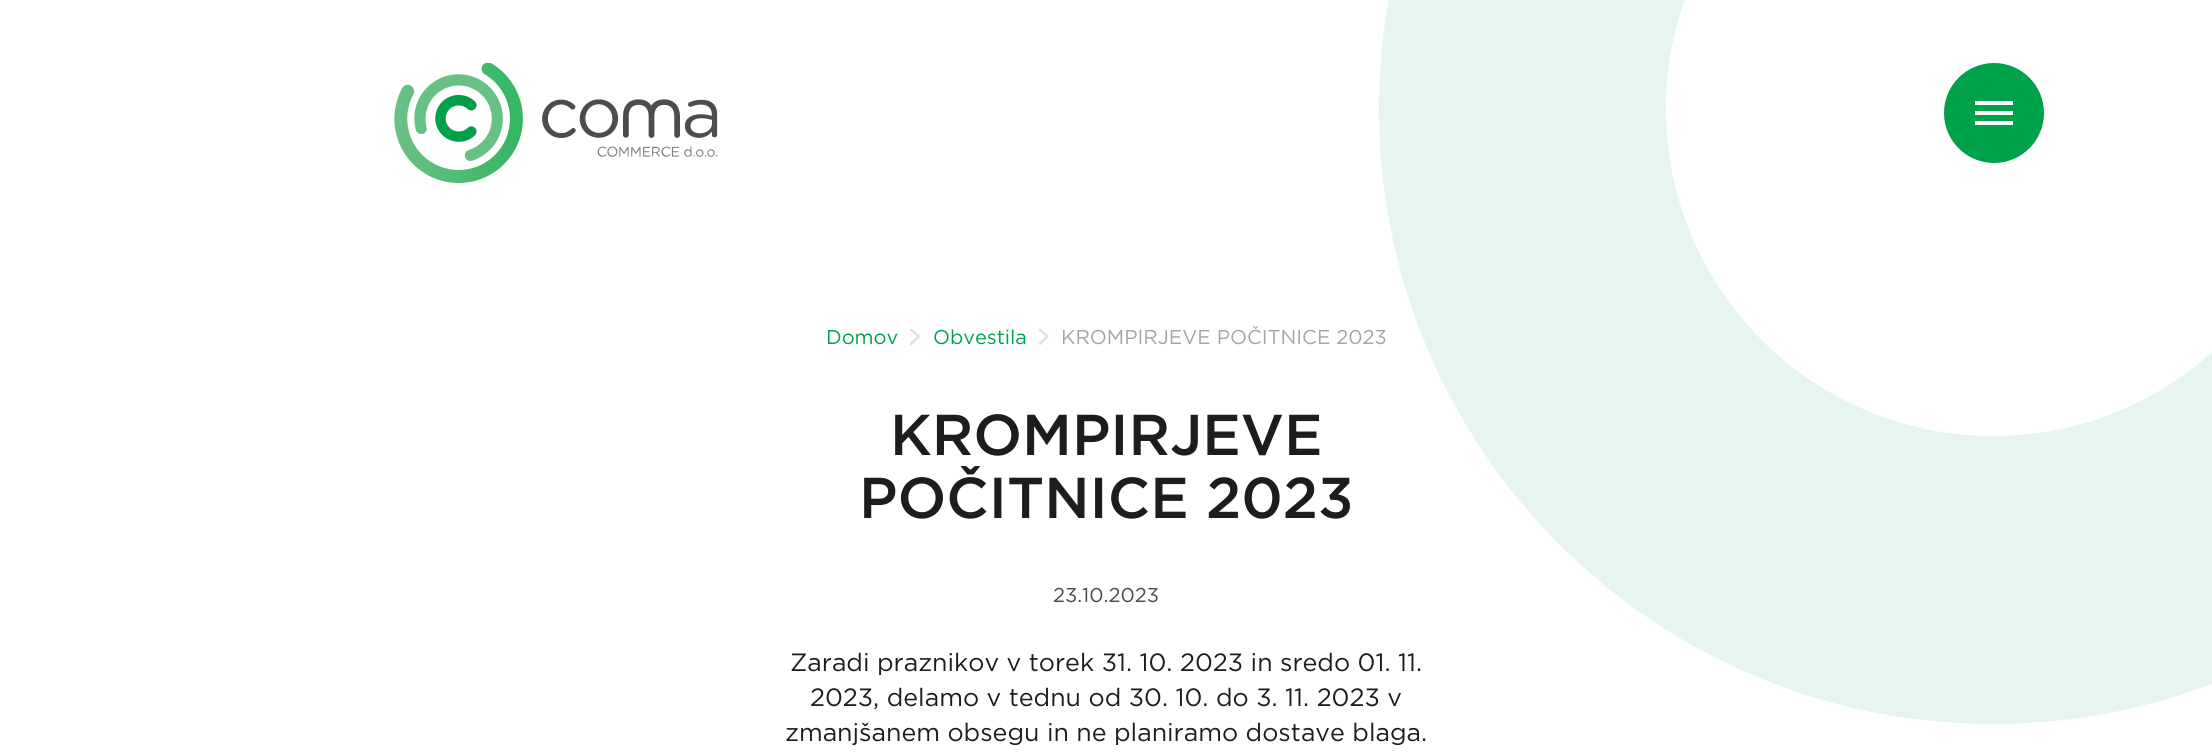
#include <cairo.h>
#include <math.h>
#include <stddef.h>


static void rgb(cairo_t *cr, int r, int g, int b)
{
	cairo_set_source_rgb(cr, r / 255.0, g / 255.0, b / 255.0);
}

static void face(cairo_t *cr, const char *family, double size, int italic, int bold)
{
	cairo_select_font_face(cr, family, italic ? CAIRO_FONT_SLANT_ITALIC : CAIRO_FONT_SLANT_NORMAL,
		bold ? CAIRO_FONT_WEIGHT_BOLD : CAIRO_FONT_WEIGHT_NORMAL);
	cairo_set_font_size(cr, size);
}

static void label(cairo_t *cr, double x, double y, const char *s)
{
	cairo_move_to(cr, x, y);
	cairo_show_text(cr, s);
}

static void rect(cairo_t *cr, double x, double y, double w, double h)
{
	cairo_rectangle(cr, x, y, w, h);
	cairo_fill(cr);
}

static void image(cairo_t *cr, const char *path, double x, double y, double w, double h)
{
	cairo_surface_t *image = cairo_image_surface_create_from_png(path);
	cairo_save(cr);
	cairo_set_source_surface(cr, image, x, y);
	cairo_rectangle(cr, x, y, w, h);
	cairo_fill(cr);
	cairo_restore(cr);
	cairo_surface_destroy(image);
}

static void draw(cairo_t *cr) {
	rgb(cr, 255, 255, 255);
	cairo_paint(cr);
	image(cr, "image0.png", 394, 63, 324, 120);
	rgb(cr, 230, 246, 238);
	cairo_set_fill_rule(cr, CAIRO_FILL_RULE_EVEN_ODD);
	cairo_new_path(cr);
	cairo_move_to(cr, 1993, 436);
	cairo_curve_to(cr, 2174, 436, 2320, 290, 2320, 109);
	cairo_curve_to(cr, 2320, -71, 2174, -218, 1993, -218);
	cairo_curve_to(cr, 1813, -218, 1666, -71, 1666, 109);
	cairo_curve_to(cr, 1666, 290, 1813, 436, 1993, 436);
	cairo_close_path(cr);
	cairo_move_to(cr, 1993, 724);
	cairo_curve_to(cr, 1654, 724, 1379, 449, 1379, 109);
	cairo_curve_to(cr, 1379, -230, 1654, -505, 1993, -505);
	cairo_curve_to(cr, 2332, -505, 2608, -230, 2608, 109);
	cairo_curve_to(cr, 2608, 449, 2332, 724, 1993, 724);
	cairo_close_path(cr);
	cairo_fill(cr);
	rgb(cr, 0, 161, 75);
	cairo_arc(cr, 1994, 113, 50, 0, 2 * M_PI);
	cairo_fill(cr);
	rgb(cr, 255, 255, 255);
	rect(cr, 1975, 111, 38, 4);
	rect(cr, 1975, 101, 38, 4);
	rect(cr, 1975, 121, 38, 4);
	face(cr, "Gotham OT", 20, 0, 0);
	rgb(cr, 0, 161, 75);
	label(cr, 826, 344, "Domov");
	image(cr, "image1.png", 910, 329, 10, 16);
	label(cr, 933, 344, "Obvestila");
	image(cr, "image2.png", 1039, 329, 10, 16);
	rgb(cr, 164, 164, 164);
	label(cr, 1061, 344, "KROMPIRJEVE POČITNICE 2023");
	face(cr, "Gotham OT Medium", 57.5, 0, 0);
	rgb(cr, 28, 29, 28);
	label(cr, 890, 455, "KROMPIRJEVE");
	label(cr, 859, 518, "POČITNICE 2023");
	face(cr, "Gotham OT", 20, 0, 0);
	rgb(cr, 73, 74, 73);
	label(cr, 1053, 602, "23.10.2023");
	face(cr, "Gotham OT", 25, 0, 0);
	rgb(cr, 28, 29, 28);
	label(cr, 790, 671, "Zaradi praznikov v torek 31. 10. 2023 in sredo 01. 11.");
	label(cr, 810, 706, "2023, delamo v tednu od 30. 10. do 3. 11. 2023 v");
	label(cr, 785, 741, "zmanjšanem obsegu in ne planiramo dostave blaga.");
}

int main(void) {
	cairo_surface_t *surface = cairo_image_surface_create(CAIRO_FORMAT_RGB24, 2212, 754);
	cairo_t *cr = cairo_create(surface);
	cairo_font_options_t *options = cairo_font_options_create();
	cairo_font_options_set_hint_metrics(options, CAIRO_HINT_METRICS_OFF);
	cairo_font_options_set_hint_style(options, CAIRO_HINT_STYLE_NONE);
	cairo_set_font_options(cr, options);
	cairo_set_miter_limit(cr, 4);
	draw(cr);
	cairo_surface_write_to_png(surface, "render.png");
	cairo_font_options_destroy(options);
	cairo_destroy(cr);
	cairo_surface_destroy(surface);
	return 0;
}
